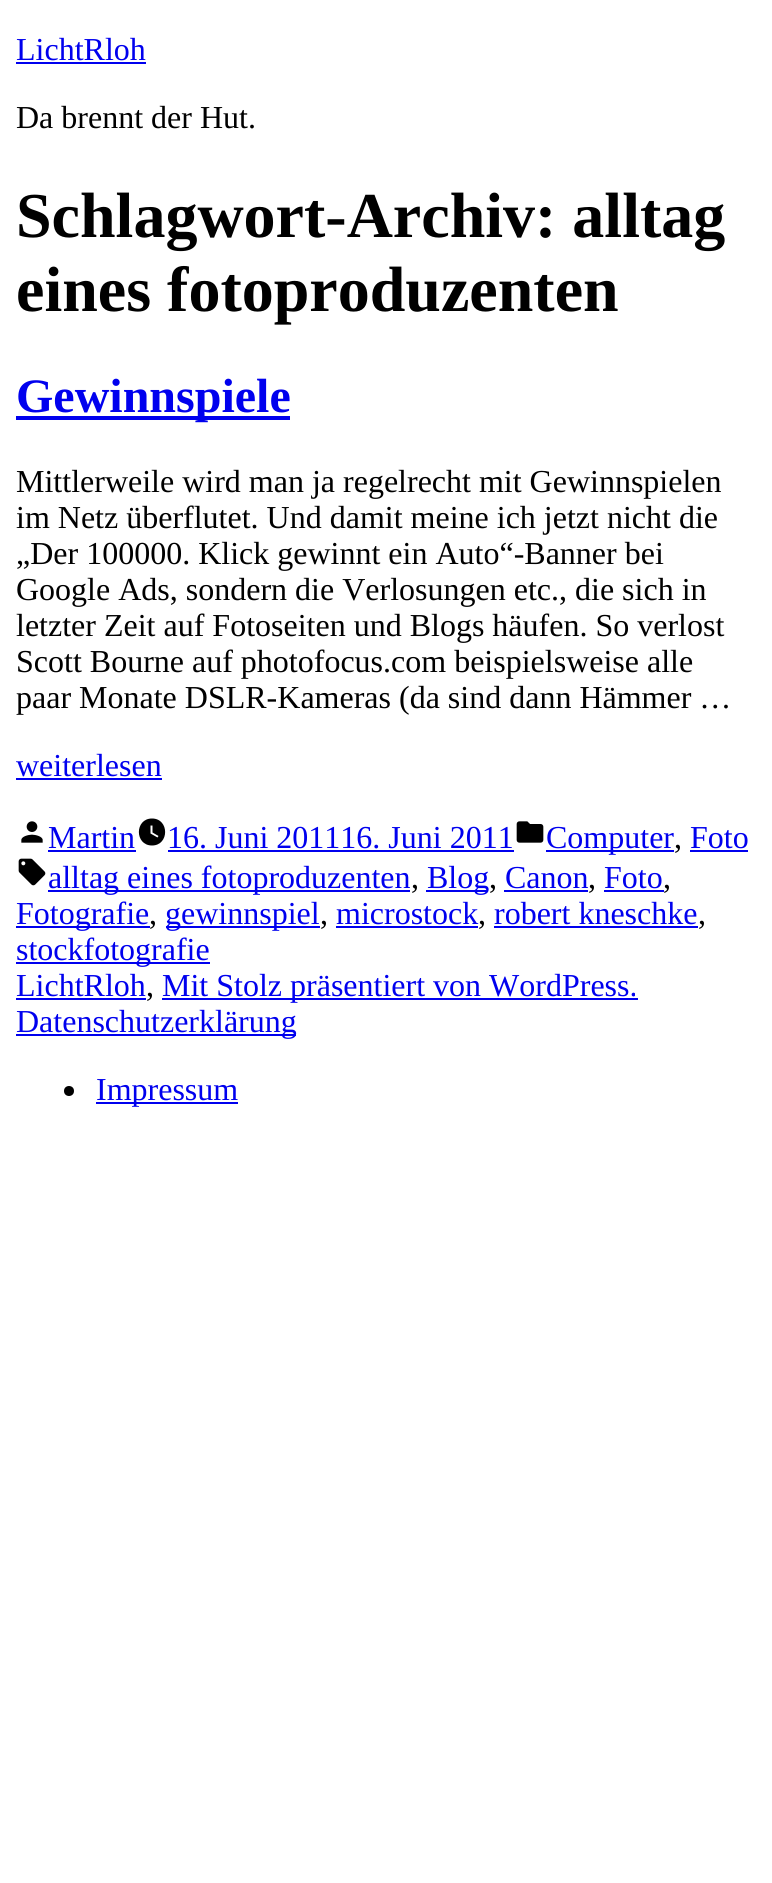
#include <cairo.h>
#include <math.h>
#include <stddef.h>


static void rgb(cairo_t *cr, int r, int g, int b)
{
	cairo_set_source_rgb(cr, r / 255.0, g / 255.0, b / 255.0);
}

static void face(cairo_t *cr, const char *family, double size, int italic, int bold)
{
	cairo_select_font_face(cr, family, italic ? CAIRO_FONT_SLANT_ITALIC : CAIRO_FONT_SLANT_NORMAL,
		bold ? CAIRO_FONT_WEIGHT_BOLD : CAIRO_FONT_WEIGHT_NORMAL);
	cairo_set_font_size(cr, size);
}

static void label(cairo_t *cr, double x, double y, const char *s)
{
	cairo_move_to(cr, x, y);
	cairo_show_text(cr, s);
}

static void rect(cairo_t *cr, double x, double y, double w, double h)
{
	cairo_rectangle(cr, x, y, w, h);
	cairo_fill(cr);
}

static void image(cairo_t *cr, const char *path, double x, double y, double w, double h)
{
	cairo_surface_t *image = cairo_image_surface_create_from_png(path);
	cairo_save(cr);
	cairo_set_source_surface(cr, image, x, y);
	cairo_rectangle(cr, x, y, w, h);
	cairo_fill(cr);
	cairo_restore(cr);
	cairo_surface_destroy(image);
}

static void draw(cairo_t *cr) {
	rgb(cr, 255, 255, 255);
	cairo_paint(cr);
	face(cr, "Liberation Serif", 32, 0, 0);
	rgb(cr, 0, 0, 238);
	label(cr, 16, 60, "LichtRloh");
	rect(cr, 16, 62, 130, 2);
	rgb(cr, 0, 0, 0);
	label(cr, 16, 128, "Da brennt der Hut.");
	face(cr, "Liberation Serif", 64, 0, 1);
	label(cr, 16, 237, "Schlagwort-Archiv: alltag");
	label(cr, 16, 311, "eines fotoproduzenten");
	rgb(cr, 0, 0, 238);
	rect(cr, 16, 416, 274, 4);
	face(cr, "Liberation Serif", 48, 0, 1);
	label(cr, 16, 412, "Gewinnspiele");
	face(cr, "Liberation Serif", 32, 0, 0);
	rgb(cr, 0, 0, 0);
	label(cr, 16, 492, "Mittlerweile wird man ja regelrecht mit Gewinnspielen");
	label(cr, 16, 528, "im Netz überflutet. Und damit meine ich jetzt nicht die");
	label(cr, 16, 564, "„Der 100000. Klick gewinnt ein Auto“-Banner bei");
	label(cr, 16, 600, "Google Ads, sondern die Verlosungen etc., die sich in");
	label(cr, 16, 636, "letzter Zeit auf Fotoseiten und Blogs häufen. So verlost");
	label(cr, 16, 672, "Scott Bourne auf photofocus.com beispielsweise alle");
	label(cr, 16, 708, "paar Monate DSLR-Kameras (da sind dann Hämmer …");
	rgb(cr, 0, 0, 238);
	label(cr, 16, 776, "weiterlesen");
	rect(cr, 16, 778, 146, 2);
	image(cr, "image0.png", 21, 821, 22, 22);
	label(cr, 48, 848, "Martin");
	rect(cr, 48, 850, 88, 2);
	label(cr, 167, 848, "16. Juni 201116. Juni 2011");
	rect(cr, 168, 850, 346, 2);
	rgb(cr, 0, 0, 0);
	cairo_new_path(cr);
	cairo_move_to(cr, 152, 818.5);
	cairo_curve_to(cr, 134.5, 818.5, 134.5, 845.5, 152, 845.5);
	cairo_curve_to(cr, 169.5, 845.5, 169.5, 818.5, 152, 818.5);
	cairo_close_path(cr);
	cairo_move_to(cr, 157.5, 837.5);
	cairo_line_to(cr, 150.5, 833.5);
	cairo_line_to(cr, 150.5, 825.5);
	cairo_line_to(cr, 152.5, 825.5);
	cairo_line_to(cr, 152.5, 832.5);
	cairo_line_to(cr, 158.5, 836);
	cairo_close_path(cr);
	cairo_fill(cr);
	image(cr, "image1.png", 516, 821, 28, 22);
	rgb(cr, 0, 0, 238);
	rect(cr, 546, 850, 128, 2);
	label(cr, 546, 848, "Computer");
	rgb(cr, 0, 0, 0);
	label(cr, 674, 848, ",");
	rgb(cr, 0, 0, 238);
	rect(cr, 690, 850, 58, 2);
	label(cr, 690, 848, "Foto");
	image(cr, "image2.png", 18, 858, 28, 28);
	rect(cr, 48, 890, 362, 2);
	label(cr, 48, 888, "alltag eines fotoproduzenten");
	rgb(cr, 0, 0, 0);
	label(cr, 411, 888, ",");
	rgb(cr, 0, 0, 238);
	rect(cr, 426, 890, 62, 2);
	label(cr, 427, 888, "Blog");
	rgb(cr, 0, 0, 0);
	label(cr, 489, 888, ",");
	rgb(cr, 0, 0, 238);
	label(cr, 505, 888, "Canon");
	rgb(cr, 0, 0, 0);
	label(cr, 588, 888, ",");
	rgb(cr, 0, 0, 238);
	rect(cr, 504, 890, 84, 2);
	label(cr, 604, 888, "Foto");
	rgb(cr, 0, 0, 0);
	label(cr, 663, 888, ",");
	rgb(cr, 0, 0, 238);
	rect(cr, 604, 890, 60, 2);
	rect(cr, 16, 926, 134, 2);
	label(cr, 16, 924, "Fotografie");
	rgb(cr, 0, 0, 0);
	label(cr, 149, 924, ",");
	rgb(cr, 0, 0, 238);
	rect(cr, 166, 926, 154, 2);
	label(cr, 165, 924, "gewinnspiel");
	rgb(cr, 0, 0, 0);
	label(cr, 320, 924, ",");
	rgb(cr, 0, 0, 238);
	label(cr, 336, 924, "microstock");
	rgb(cr, 0, 0, 0);
	label(cr, 478, 924, ",");
	rgb(cr, 0, 0, 238);
	rect(cr, 336, 926, 142, 2);
	label(cr, 494, 924, "robert kneschke");
	rgb(cr, 0, 0, 0);
	label(cr, 698, 924, ",");
	rgb(cr, 0, 0, 238);
	rect(cr, 494, 926, 204, 2);
	rect(cr, 16, 962, 194, 2);
	label(cr, 16, 960, "stockfotografie");
	label(cr, 16, 996, "LichtRloh");
	rect(cr, 16, 998, 130, 2);
	rgb(cr, 0, 0, 0);
	label(cr, 146, 996, ",");
	rgb(cr, 0, 0, 238);
	rect(cr, 162, 998, 476, 2);
	label(cr, 162, 996, "Mit Stolz präsentiert von WordPress.");
	rect(cr, 16, 1034, 280, 2);
	label(cr, 16, 1032, "Datenschutzerklärung");
	rgb(cr, 0, 0, 0);
	cairo_new_path(cr);
	cairo_arc(cr, 69, 1091, 5, 0, 2 * M_PI);
	cairo_fill(cr);
	rgb(cr, 0, 0, 238);
	rect(cr, 96, 1102, 142, 2);
	label(cr, 96, 1100, "Impressum");
}

int main(void) {
	cairo_surface_t *surface = cairo_image_surface_create(CAIRO_FORMAT_RGB24, 772, 1883);
	cairo_t *cr = cairo_create(surface);
	cairo_font_options_t *options = cairo_font_options_create();
	cairo_font_options_set_hint_metrics(options, CAIRO_HINT_METRICS_OFF);
	cairo_font_options_set_hint_style(options, CAIRO_HINT_STYLE_NONE);
	cairo_set_font_options(cr, options);
	cairo_set_miter_limit(cr, 4);
	draw(cr);
	cairo_surface_write_to_png(surface, "render.png");
	cairo_font_options_destroy(options);
	cairo_destroy(cr);
	cairo_surface_destroy(surface);
	return 0;
}
